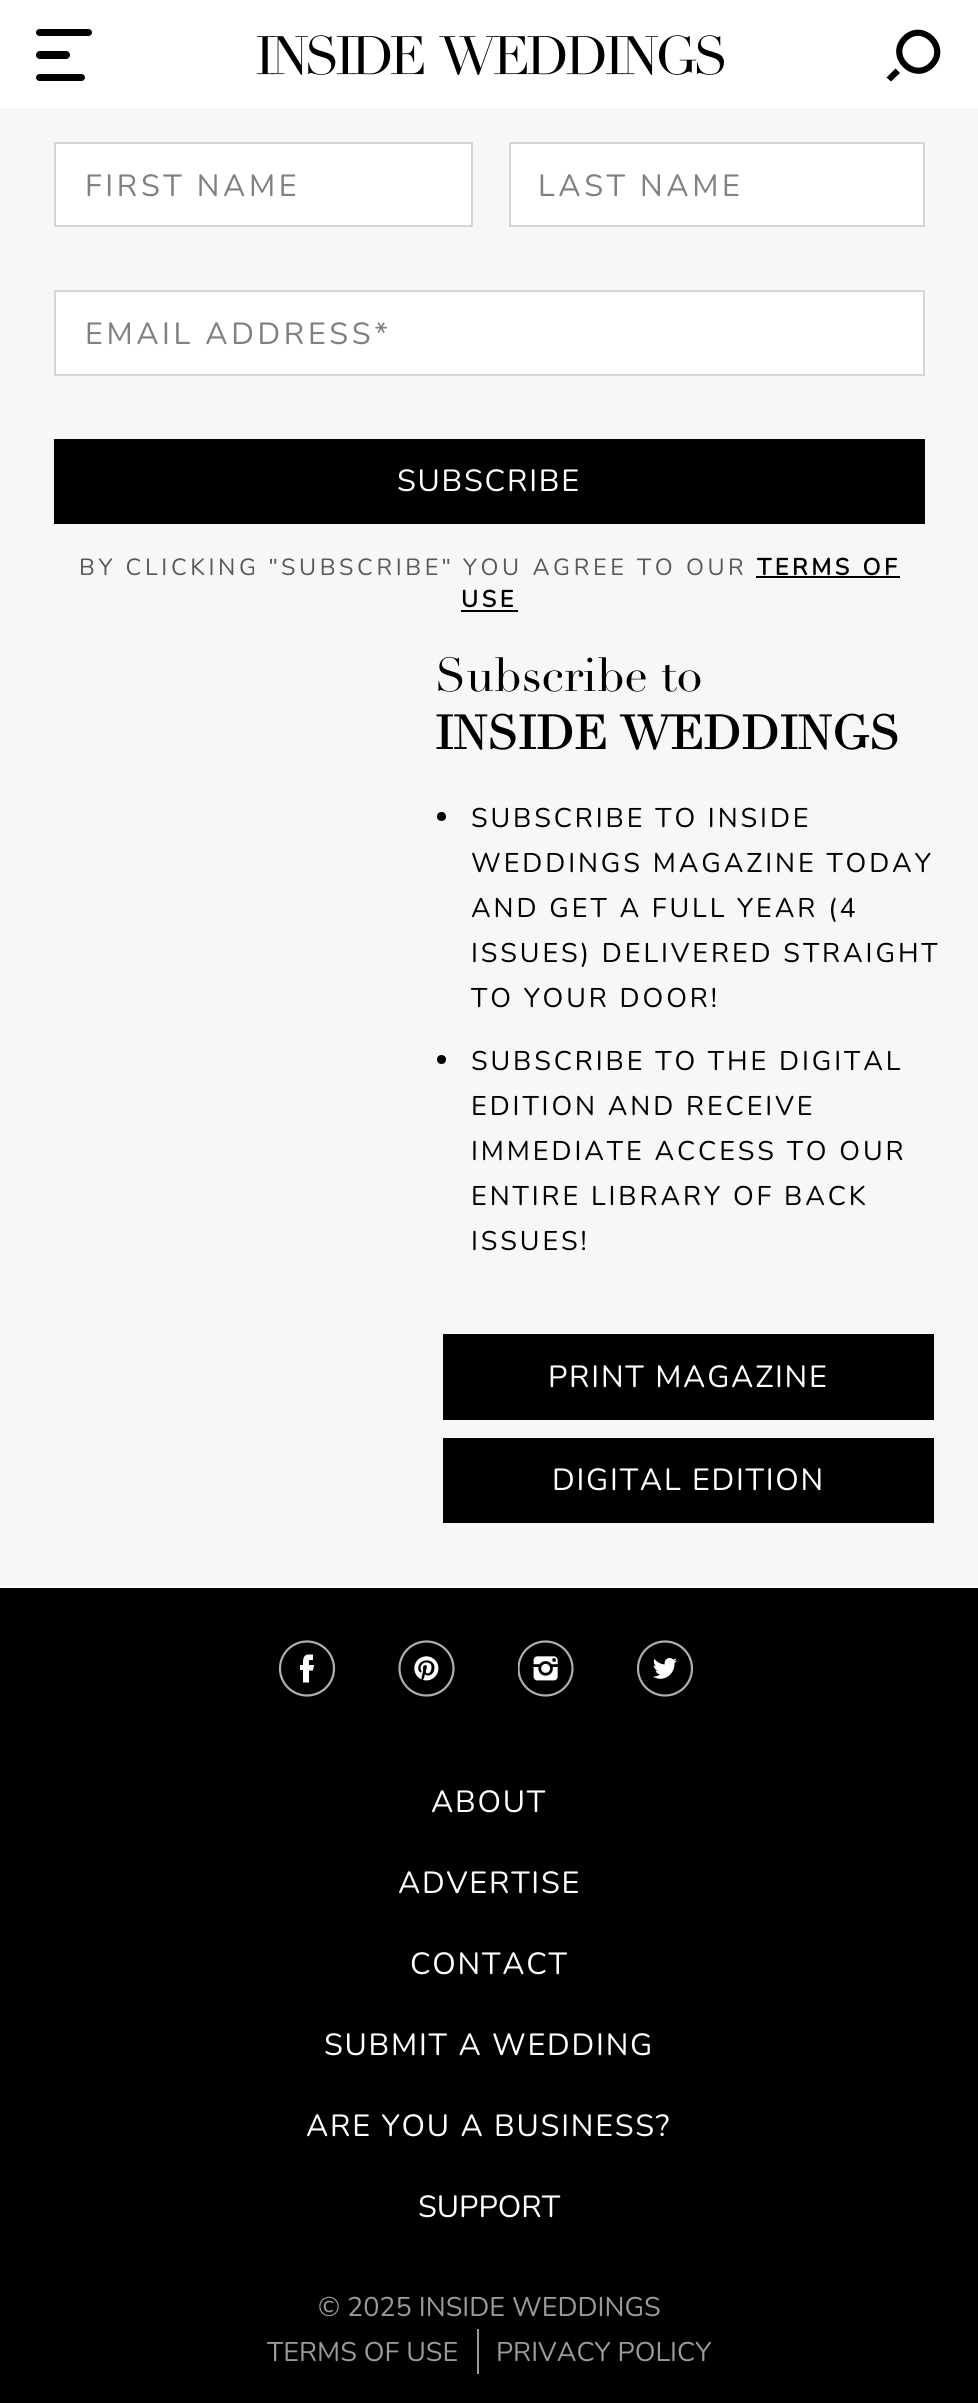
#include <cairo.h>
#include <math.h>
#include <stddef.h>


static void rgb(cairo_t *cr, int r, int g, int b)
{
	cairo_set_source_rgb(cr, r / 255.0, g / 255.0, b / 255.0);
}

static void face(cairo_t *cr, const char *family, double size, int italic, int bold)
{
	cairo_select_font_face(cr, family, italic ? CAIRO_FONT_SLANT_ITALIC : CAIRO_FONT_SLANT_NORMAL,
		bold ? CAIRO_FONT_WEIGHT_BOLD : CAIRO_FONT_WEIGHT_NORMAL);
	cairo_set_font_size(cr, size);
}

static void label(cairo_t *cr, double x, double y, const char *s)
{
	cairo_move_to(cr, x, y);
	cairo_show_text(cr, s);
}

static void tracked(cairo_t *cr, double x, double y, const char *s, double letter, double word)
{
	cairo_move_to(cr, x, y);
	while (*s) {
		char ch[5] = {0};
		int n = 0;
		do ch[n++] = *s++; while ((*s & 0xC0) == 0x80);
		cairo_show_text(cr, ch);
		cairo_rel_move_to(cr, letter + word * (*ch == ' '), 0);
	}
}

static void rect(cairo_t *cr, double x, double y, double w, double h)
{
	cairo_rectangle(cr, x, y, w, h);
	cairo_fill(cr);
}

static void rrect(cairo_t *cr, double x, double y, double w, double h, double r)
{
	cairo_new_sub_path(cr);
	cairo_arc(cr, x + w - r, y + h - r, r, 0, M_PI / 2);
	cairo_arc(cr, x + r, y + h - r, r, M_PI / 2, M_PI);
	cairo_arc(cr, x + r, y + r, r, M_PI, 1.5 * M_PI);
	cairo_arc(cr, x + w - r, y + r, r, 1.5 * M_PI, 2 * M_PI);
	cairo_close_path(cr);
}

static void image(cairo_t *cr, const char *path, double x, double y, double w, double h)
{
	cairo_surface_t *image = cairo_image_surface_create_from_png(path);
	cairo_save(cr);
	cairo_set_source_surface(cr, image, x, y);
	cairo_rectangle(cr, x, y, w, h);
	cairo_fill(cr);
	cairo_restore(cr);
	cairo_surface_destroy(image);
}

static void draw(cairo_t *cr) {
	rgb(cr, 247, 247, 247);
	cairo_paint(cr);
	rgb(cr, 255, 255, 255);
	rect(cr, 0, 0, 978, 108);
	rgb(cr, 0, 0, 0);
	rrect(cr, 36, 29, 56, 7, 3.5);
	cairo_fill(cr);
	rrect(cr, 36, 51, 34, 8, 4);
	cairo_fill(cr);
	rrect(cr, 36, 74, 49, 7, 3.5);
	cairo_fill(cr);
	image(cr, "image0.png", 257, 35, 467, 40);
	cairo_new_path(cr);
	cairo_move_to(cr, 931.5, 65);
	cairo_curve_to(cr, 949, 47.5, 922.5, 21, 905, 38.5);
	cairo_curve_to(cr, 887.5, 56, 914, 82.5, 931.5, 65);
	cairo_close_path(cr);
	cairo_set_line_width(cr, 6.2);
	cairo_stroke(cr);
	cairo_set_fill_rule(cr, CAIRO_FILL_RULE_EVEN_ODD);
	cairo_new_path(cr);
	cairo_move_to(cr, 891, 81.5);
	cairo_line_to(cr, 900, 73);
	cairo_line_to(cr, 895.5, 68.5);
	cairo_line_to(cr, 886.5, 77.5);
	cairo_close_path(cr);
	cairo_fill(cr);
	rgb(cr, 255, 255, 255);
	cairo_rectangle(cr, 55, 143, 417, 83);
	cairo_fill_preserve(cr);
	rgb(cr, 214, 214, 212);
	cairo_set_line_width(cr, 2);
	cairo_stroke(cr);
	face(cr, "Nunito", 30.6, 0, 0);
	rgb(cr, 128, 128, 128);
	tracked(cr, 85, 196, "FIRST NAME", 3.6, 0);
	rgb(cr, 255, 255, 255);
	cairo_rectangle(cr, 510, 143, 414, 83);
	cairo_fill_preserve(cr);
	rgb(cr, 214, 214, 212);
	cairo_stroke(cr);
	rgb(cr, 128, 128, 128);
	tracked(cr, 538, 196, "LAST NAME", 3.6, 0);
	rgb(cr, 255, 255, 255);
	cairo_rectangle(cr, 55, 291, 869, 84);
	cairo_fill_preserve(cr);
	rgb(cr, 214, 214, 212);
	cairo_stroke(cr);
	rgb(cr, 128, 128, 128);
	tracked(cr, 85, 344, "EMAIL ADDRESS*", 3.6, 0);
	rgb(cr, 0, 0, 0);
	rect(cr, 54, 439, 871, 85);
	rgb(cr, 255, 255, 255);
	tracked(cr, 397, 491, "SUBSCRIBE", 1.75, 0);
	face(cr, "Nunito", 23.4, 0, 0);
	rgb(cr, 89, 89, 89);
	tracked(cr, 79, 575, "BY CLICKING", 3.6, 0);
	face(cr, "Liberation Sans", 23.4, 0, 0);
	tracked(cr, 269, 575, "\"", 3.6, 0);
	face(cr, "Nunito", 23.4, 0, 0);
	tracked(cr, 281, 575, "SUBSCRIBE", 3.6, 0);
	face(cr, "Liberation Sans", 23.4, 0, 0);
	tracked(cr, 442, 575, "\"", 3.6, 0);
	face(cr, "Nunito", 23.4, 0, 0);
	tracked(cr, 463, 575, "YOU AGREE TO OUR", 3.6, 0);
	face(cr, "Nunito", 23.4, 0, 1);
	rgb(cr, 0, 0, 0);
	tracked(cr, 757, 575, "TERMS OF", 3.6, 0);
	rect(cr, 756, 576, 144, 2);
	tracked(cr, 461, 607, "USE", 3.6, 0);
	rect(cr, 461, 610, 57, 2);
	face(cr, "Didot", 46.75, 0, 0);
	label(cr, 435, 691, "Subscribe to");
	face(cr, "Didot", 46.75, 0, 1);
	label(cr, 435, 749, "INSIDE WEDDINGS");
	cairo_new_path(cr);
	cairo_arc(cr, 441.5, 816.5, 4.5, 0, 2 * M_PI);
	cairo_fill(cr);
	face(cr, "Nunito", 27, 0, 0);
	tracked(cr, 471, 827, "SUBSCRIBE TO INSIDE", 2.9, 0);
	tracked(cr, 471, 872, "WEDDINGS MAGAZINE TODAY", 2.9, 0);
	tracked(cr, 471, 917, "AND GET A FULL YEAR (4", 2.9, 0);
	tracked(cr, 471, 962, "ISSUES) DELIVERED STRAIGHT", 2.9, 0);
	tracked(cr, 471, 1007, "TO YOUR DOOR!", 2.9, 0);
	cairo_new_path(cr);
	cairo_arc(cr, 441.5, 1059.5, 4.5, 0, 2 * M_PI);
	cairo_fill(cr);
	tracked(cr, 471, 1070, "SUBSCRIBE TO THE DIGITAL", 2.9, 0);
	tracked(cr, 471, 1115, "EDITION AND RECEIVE", 2.9, 0);
	tracked(cr, 471, 1160, "IMMEDIATE ACCESS TO OUR", 2.9, 0);
	tracked(cr, 471, 1205, "ENTIRE LIBRARY OF BACK", 2.9, 0);
	tracked(cr, 471, 1250, "ISSUES!", 2.9, 0);
	rect(cr, 443, 1334, 491, 86);
	face(cr, "Nunito", 30.6, 0, 0);
	rgb(cr, 255, 255, 255);
	tracked(cr, 548, 1387, "PRINT MAGAZINE", 1.75, 0);
	rgb(cr, 0, 0, 0);
	rect(cr, 443, 1438, 491, 85);
	rgb(cr, 255, 255, 255);
	tracked(cr, 552, 1490, "DIGITAL EDITION", 1.75, 0);
	rgb(cr, 0, 0, 0);
	rect(cr, 0, 1588, 978, 815);
	rgb(cr, 255, 255, 255);
	rect(cr, 0, 1586, 978, 2);
	cairo_new_path(cr);
	cairo_arc(cr, 307, 1668.5, 27, 0, 2 * M_PI);
	rgb(cr, 175, 175, 175);
	cairo_set_line_width(cr, 2.2);
	cairo_stroke(cr);
	rgb(cr, 255, 255, 255);
	cairo_set_fill_rule(cr, CAIRO_FILL_RULE_WINDING);
	cairo_new_path(cr);
	cairo_move_to(cr, 303, 1670);
	cairo_line_to(cr, 303, 1682.5);
	cairo_line_to(cr, 309, 1682.5);
	cairo_line_to(cr, 309, 1670.5);
	cairo_line_to(cr, 313, 1670.5);
	cairo_line_to(cr, 314, 1665);
	cairo_line_to(cr, 309, 1665);
	cairo_curve_to(cr, 309, 1660, 308, 1660, 313, 1660);
	cairo_line_to(cr, 313, 1654.5);
	cairo_line_to(cr, 307.5, 1654.5);
	cairo_curve_to(cr, 302.5, 1655.5, 303, 1661, 303, 1665);
	cairo_line_to(cr, 300, 1665);
	cairo_line_to(cr, 300, 1670);
	cairo_close_path(cr);
	cairo_fill(cr);
	image(cr, "image1.png", 398, 1640, 57, 57);
	image(cr, "image2.png", 518, 1640, 56, 57);
	image(cr, "image3.png", 637, 1640, 56, 57);
	tracked(cr, 431, 1812, "ABOUT", 1.75, 0);
	tracked(cr, 398, 1893, "ADVERTISE", 1.75, 0);
	tracked(cr, 410, 1974, "CONTACT", 1.75, 0);
	tracked(cr, 324, 2055, "SUBMIT A WEDDING", 1.75, 0);
	tracked(cr, 306, 2136, "ARE YOU A BUSINESS?", 1.75, 0);
	label(cr, 418, 2217, "SUPPORT");
	face(cr, "Nunito", 27, 0, 0);
	rgb(cr, 154, 154, 154);
	label(cr, 318, 2316, "© 2025 INSIDE WEDDINGS");
	rect(cr, 477, 2329, 2, 45);
	label(cr, 267, 2361, "TERMS OF USE");
	label(cr, 496, 2361, "PRIVACY POLICY");
}

int main(void) {
	cairo_surface_t *surface = cairo_image_surface_create(CAIRO_FORMAT_RGB24, 978, 2403);
	cairo_t *cr = cairo_create(surface);
	cairo_font_options_t *options = cairo_font_options_create();
	cairo_font_options_set_hint_metrics(options, CAIRO_HINT_METRICS_OFF);
	cairo_font_options_set_hint_style(options, CAIRO_HINT_STYLE_NONE);
	cairo_set_font_options(cr, options);
	cairo_set_miter_limit(cr, 4);
	draw(cr);
	cairo_surface_write_to_png(surface, "render.png");
	cairo_font_options_destroy(options);
	cairo_destroy(cr);
	cairo_surface_destroy(surface);
	return 0;
}
